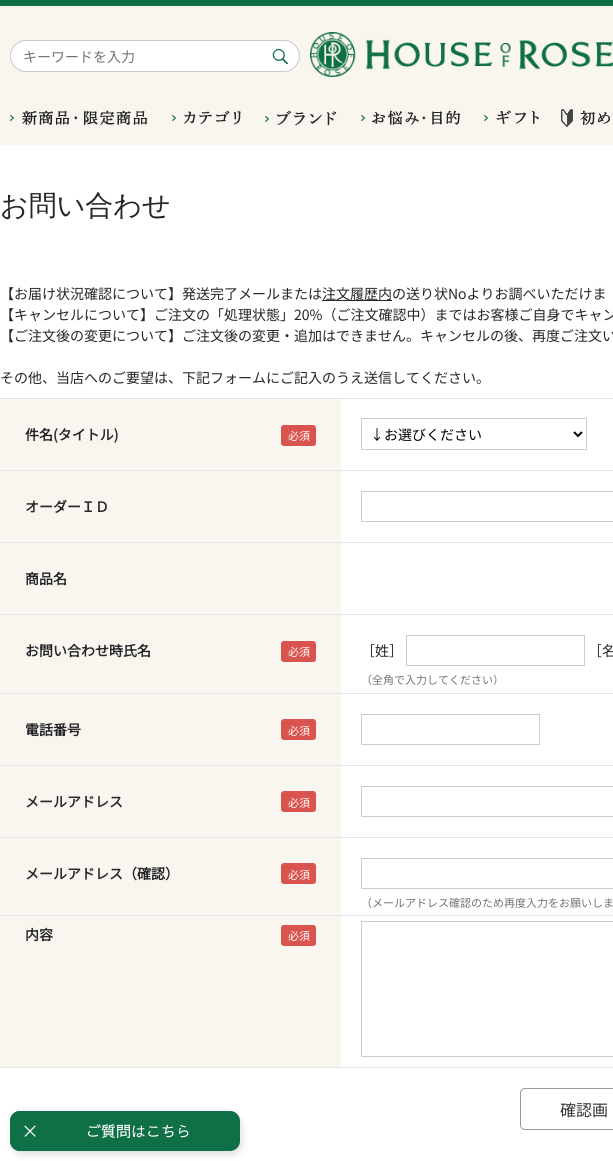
#include <cairo.h>
#include <math.h>
#include <stddef.h>


static void rgb(cairo_t *cr, int r, int g, int b)
{
	cairo_set_source_rgb(cr, r / 255.0, g / 255.0, b / 255.0);
}

static void face(cairo_t *cr, const char *family, double size, int italic, int bold)
{
	cairo_select_font_face(cr, family, italic ? CAIRO_FONT_SLANT_ITALIC : CAIRO_FONT_SLANT_NORMAL,
		bold ? CAIRO_FONT_WEIGHT_BOLD : CAIRO_FONT_WEIGHT_NORMAL);
	cairo_set_font_size(cr, size);
}

static void label(cairo_t *cr, double x, double y, const char *s)
{
	cairo_move_to(cr, x, y);
	cairo_show_text(cr, s);
}

static void rect(cairo_t *cr, double x, double y, double w, double h)
{
	cairo_rectangle(cr, x, y, w, h);
	cairo_fill(cr);
}

static void rrect(cairo_t *cr, double x, double y, double w, double h, double r)
{
	cairo_new_sub_path(cr);
	cairo_arc(cr, x + w - r, y + h - r, r, 0, M_PI / 2);
	cairo_arc(cr, x + r, y + h - r, r, M_PI / 2, M_PI);
	cairo_arc(cr, x + r, y + r, r, M_PI, 1.5 * M_PI);
	cairo_arc(cr, x + w - r, y + r, r, 1.5 * M_PI, 2 * M_PI);
	cairo_close_path(cr);
}

static void soft_shadow(cairo_t *cr, double x, double y, double w, double h, double r, double blur, double alpha)
{
	cairo_push_group_with_content(cr, CAIRO_CONTENT_ALPHA);
	cairo_set_operator(cr, CAIRO_OPERATOR_SOURCE);
	for (int i = 15; i >= -15 && fmin(w, h) + blur * i / 3 > 0; i -= 2) {
		double e = blur * i / 6;
		cairo_set_source_rgba(cr, 0, 0, 0, alpha * erfc((i - 1) / 8.5) / 2);
		rrect(cr, x - e, y - e, w + 2 * e, h + 2 * e, fmax(0, fmin(r + e + blur * .6, fmin(w, h) / 2 + e)));
		cairo_fill(cr);
	}
	cairo_pattern_t *soft = cairo_pop_group(cr);
	cairo_mask(cr, soft);
	cairo_pattern_destroy(soft);
}

static void image(cairo_t *cr, const char *path, double x, double y, double w, double h)
{
	cairo_surface_t *image = cairo_image_surface_create_from_png(path);
	cairo_save(cr);
	cairo_set_source_surface(cr, image, x, y);
	cairo_rectangle(cr, x, y, w, h);
	cairo_fill(cr);
	cairo_restore(cr);
	cairo_surface_destroy(image);
}

static void draw(cairo_t *cr) {
	rgb(cr, 255, 255, 255);
	cairo_paint(cr);
	rgb(cr, 249, 245, 239);
	rect(cr, 0, 6, 613, 139);
	rgb(cr, 15, 111, 71);
	rect(cr, 0, 0, 613, 6);
	rgb(cr, 255, 255, 255);
	rrect(cr, 10.5, 40.5, 289, 31, 15.5);
	cairo_fill_preserve(cr);
	rgb(cr, 201, 201, 201);
	cairo_set_line_width(cr, 1);
	cairo_stroke(cr);
	face(cr, "Noto Sans JP Thin", 14, 0, 0);
	rgb(cr, 115, 115, 115);
	label(cr, 23, 62, "キーワードを入力");
	image(cr, "image0.png", 272, 48, 16, 17);
	image(cr, "image1.png", 310, 32, 303, 45);
	image(cr, "image2.png", 10, 110, 138, 15);
	image(cr, "image3.png", 172, 111, 69, 14);
	image(cr, "image4.png", 265, 110, 72, 16);
	image(cr, "image5.png", 361, 110, 99, 15);
	image(cr, "image6.png", 484, 110, 55, 15);
	image(cr, "image7.png", 561, 109, 52, 18);
	face(cr, "WenQuanYi Zen Hei Medium", 28, 0, 0);
	rgb(cr, 38, 38, 42);
	label(cr, 0, 215, "お問い合わせ");
	face(cr, "Noto Sans JP Thin", 14, 0, 0);
	label(cr, 0, 299, "【お届け状況確認について】発送完了メールまたは");
	rect(cr, 322, 300, 70, 1);
	label(cr, 322, 299, "注文履歴内の送り状Noよりお調べいただけま");
	label(cr, 0, 320, "【キャンセルについて】ご注文の「処理状態」20%（ご注文確認中）まではお客様ご自身でキャン");
	label(cr, 0, 341, "【ご注文後の変更について】ご注文後の変更・追加はできません。キャンセルの後、再度ご注文い");
	label(cr, 0, 383, "その他、当店へのご要望は、下記フォームにご記入のうえ送信してください。");
	rgb(cr, 229, 229, 229);
	rect(cr, 0, 398, 613, 1);
	rgb(cr, 249, 245, 239);
	rect(cr, 0, 399, 341, 71);
	face(cr, "Noto Sans JP", 14, 0, 1);
	rgb(cr, 38, 38, 42);
	label(cr, 25, 440, "件名(タイトル)");
	rgb(cr, 217, 83, 79);
	rrect(cr, 281, 425, 35, 21, 3);
	cairo_fill(cr);
	face(cr, "Noto Sans JP Thin", 11, 0, 0);
	rgb(cr, 255, 255, 255);
	label(cr, 288, 440, "必須");
	cairo_rectangle(cr, 361.5, 418.5, 225, 31);
	rgb(cr, 204, 204, 204);
	cairo_stroke(cr);
	cairo_new_path(cr);
	cairo_move_to(cr, 574, 432);
	cairo_line_to(cr, 578, 436);
	cairo_line_to(cr, 582, 432);
	rgb(cr, 0, 0, 0);
	cairo_set_line_width(cr, 2);
	cairo_stroke(cr);
	face(cr, "Noto Sans JP Thin", 14, 0, 0);
	label(cr, 370, 440, "↓お選びください");
	rgb(cr, 229, 229, 229);
	rect(cr, 0, 470, 613, 1);
	rgb(cr, 249, 245, 239);
	rect(cr, 0, 471, 341, 71);
	face(cr, "Noto Sans JP", 14, 0, 1);
	rgb(cr, 38, 38, 42);
	label(cr, 25, 512, "オーダーＩＤ");
	cairo_rectangle(cr, 361.5, 491.5, 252, 30);
	rgb(cr, 204, 204, 204);
	cairo_set_line_width(cr, 1);
	cairo_stroke(cr);
	rgb(cr, 229, 229, 229);
	rect(cr, 0, 542, 613, 1);
	rgb(cr, 249, 245, 239);
	rect(cr, 0, 543, 341, 71);
	rgb(cr, 38, 38, 42);
	label(cr, 25, 584, "商品名");
	rgb(cr, 229, 229, 229);
	rect(cr, 0, 614, 613, 1);
	rgb(cr, 249, 245, 239);
	rect(cr, 0, 615, 341, 78);
	rgb(cr, 38, 38, 42);
	label(cr, 25, 656, "お問い合わせ時氏名");
	rgb(cr, 217, 83, 79);
	rrect(cr, 281, 641, 35, 21, 3);
	cairo_fill(cr);
	face(cr, "Noto Sans JP Thin", 11, 0, 0);
	rgb(cr, 255, 255, 255);
	label(cr, 288, 656, "必須");
	face(cr, "Noto Sans JP Thin", 14, 0, 0);
	rgb(cr, 38, 38, 42);
	label(cr, 361, 656, "［姓］");
	cairo_rectangle(cr, 406.5, 635.5, 178, 30);
	rgb(cr, 204, 204, 204);
	cairo_stroke(cr);
	rgb(cr, 38, 38, 42);
	label(cr, 588, 656, "［名");
	face(cr, "Noto Sans JP Thin", 11, 0, 0);
	rgb(cr, 115, 115, 115);
	label(cr, 361, 684, "（全角で入力してください）");
	rgb(cr, 229, 229, 229);
	rect(cr, 0, 693, 613, 1);
	rgb(cr, 249, 245, 239);
	rect(cr, 0, 694, 341, 71);
	face(cr, "Noto Sans JP", 14, 0, 1);
	rgb(cr, 38, 38, 42);
	label(cr, 25, 735, "電話番号");
	rgb(cr, 217, 83, 79);
	rrect(cr, 281, 719, 35, 21, 3);
	cairo_fill(cr);
	face(cr, "Noto Sans JP Thin", 11, 0, 0);
	rgb(cr, 255, 255, 255);
	label(cr, 288, 735, "必須");
	cairo_rectangle(cr, 361.5, 714.5, 178, 30);
	rgb(cr, 204, 204, 204);
	cairo_stroke(cr);
	rgb(cr, 229, 229, 229);
	rect(cr, 0, 765, 613, 1);
	rgb(cr, 249, 245, 239);
	rect(cr, 0, 766, 341, 71);
	face(cr, "Noto Sans JP", 14, 0, 1);
	rgb(cr, 38, 38, 42);
	label(cr, 25, 807, "メールアドレス");
	rgb(cr, 217, 83, 79);
	rrect(cr, 281, 791, 35, 21, 3);
	cairo_fill(cr);
	face(cr, "Noto Sans JP Thin", 11, 0, 0);
	rgb(cr, 255, 255, 255);
	label(cr, 288, 807, "必須");
	cairo_rectangle(cr, 361.5, 786.5, 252, 30);
	rgb(cr, 204, 204, 204);
	cairo_stroke(cr);
	rgb(cr, 229, 229, 229);
	rect(cr, 0, 837, 613, 1);
	rgb(cr, 249, 245, 239);
	rect(cr, 0, 838, 341, 77);
	face(cr, "Noto Sans JP", 14, 0, 1);
	rgb(cr, 38, 38, 42);
	label(cr, 25, 879, "メールアドレス（確認）");
	rgb(cr, 217, 83, 79);
	rrect(cr, 281, 863, 35, 21, 3);
	cairo_fill(cr);
	face(cr, "Noto Sans JP Thin", 11, 0, 0);
	rgb(cr, 255, 255, 255);
	label(cr, 288, 879, "必須");
	cairo_rectangle(cr, 361.5, 858.5, 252, 30);
	rgb(cr, 204, 204, 204);
	cairo_stroke(cr);
	rgb(cr, 115, 115, 115);
	label(cr, 361, 907, "（メールアドレス確認のため再度入力をお願いしま");
	rgb(cr, 229, 229, 229);
	rect(cr, 0, 915, 613, 1);
	rect(cr, 0, 1067, 613, 1);
	rgb(cr, 249, 245, 239);
	rect(cr, 0, 916, 341, 151);
	face(cr, "Noto Sans JP", 14, 0, 1);
	rgb(cr, 38, 38, 42);
	label(cr, 25, 940, "内容");
	rgb(cr, 217, 83, 79);
	rrect(cr, 281, 925, 35, 21, 3);
	cairo_fill(cr);
	face(cr, "Noto Sans JP Thin", 11, 0, 0);
	rgb(cr, 255, 255, 255);
	label(cr, 288, 940, "必須");
	cairo_rectangle(cr, 361.5, 921.5, 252, 135);
	rgb(cr, 204, 204, 204);
	cairo_stroke(cr);
	rrect(cr, 520.5, 1088.5, 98, 41, 4.5);
	rgb(cr, 153, 153, 153);
	cairo_stroke(cr);
	face(cr, "Noto Sans JP Thin", 16, 0, 0);
	rgb(cr, 51, 51, 51);
	label(cr, 560, 1116, "確認画");
	rgb(cr, 0, 0, 0);
	soft_shadow(cr, 12, 1115, 230, 40, 10, 4, 0.12);
	rgb(cr, 15, 111, 71);
	rrect(cr, 10, 1111, 230, 40, 10);
	cairo_fill(cr);
	rrect(cr, 10, 1111, 40, 40, 10);
	cairo_fill(cr);
	image(cr, "image8.png", 24, 1125, 12, 12);
	face(cr, "Sawarabi Gothic", 15, 0, 0);
	rgb(cr, 255, 255, 255);
	label(cr, 86, 1137, "ご質問はこちら");
}

int main(void) {
	cairo_surface_t *surface = cairo_image_surface_create(CAIRO_FORMAT_RGB24, 613, 1161);
	cairo_t *cr = cairo_create(surface);
	cairo_font_options_t *options = cairo_font_options_create();
	cairo_font_options_set_hint_metrics(options, CAIRO_HINT_METRICS_OFF);
	cairo_font_options_set_hint_style(options, CAIRO_HINT_STYLE_NONE);
	cairo_set_font_options(cr, options);
	cairo_set_miter_limit(cr, 4);
	draw(cr);
	cairo_surface_write_to_png(surface, "render.png");
	cairo_font_options_destroy(options);
	cairo_destroy(cr);
	cairo_surface_destroy(surface);
	return 0;
}
